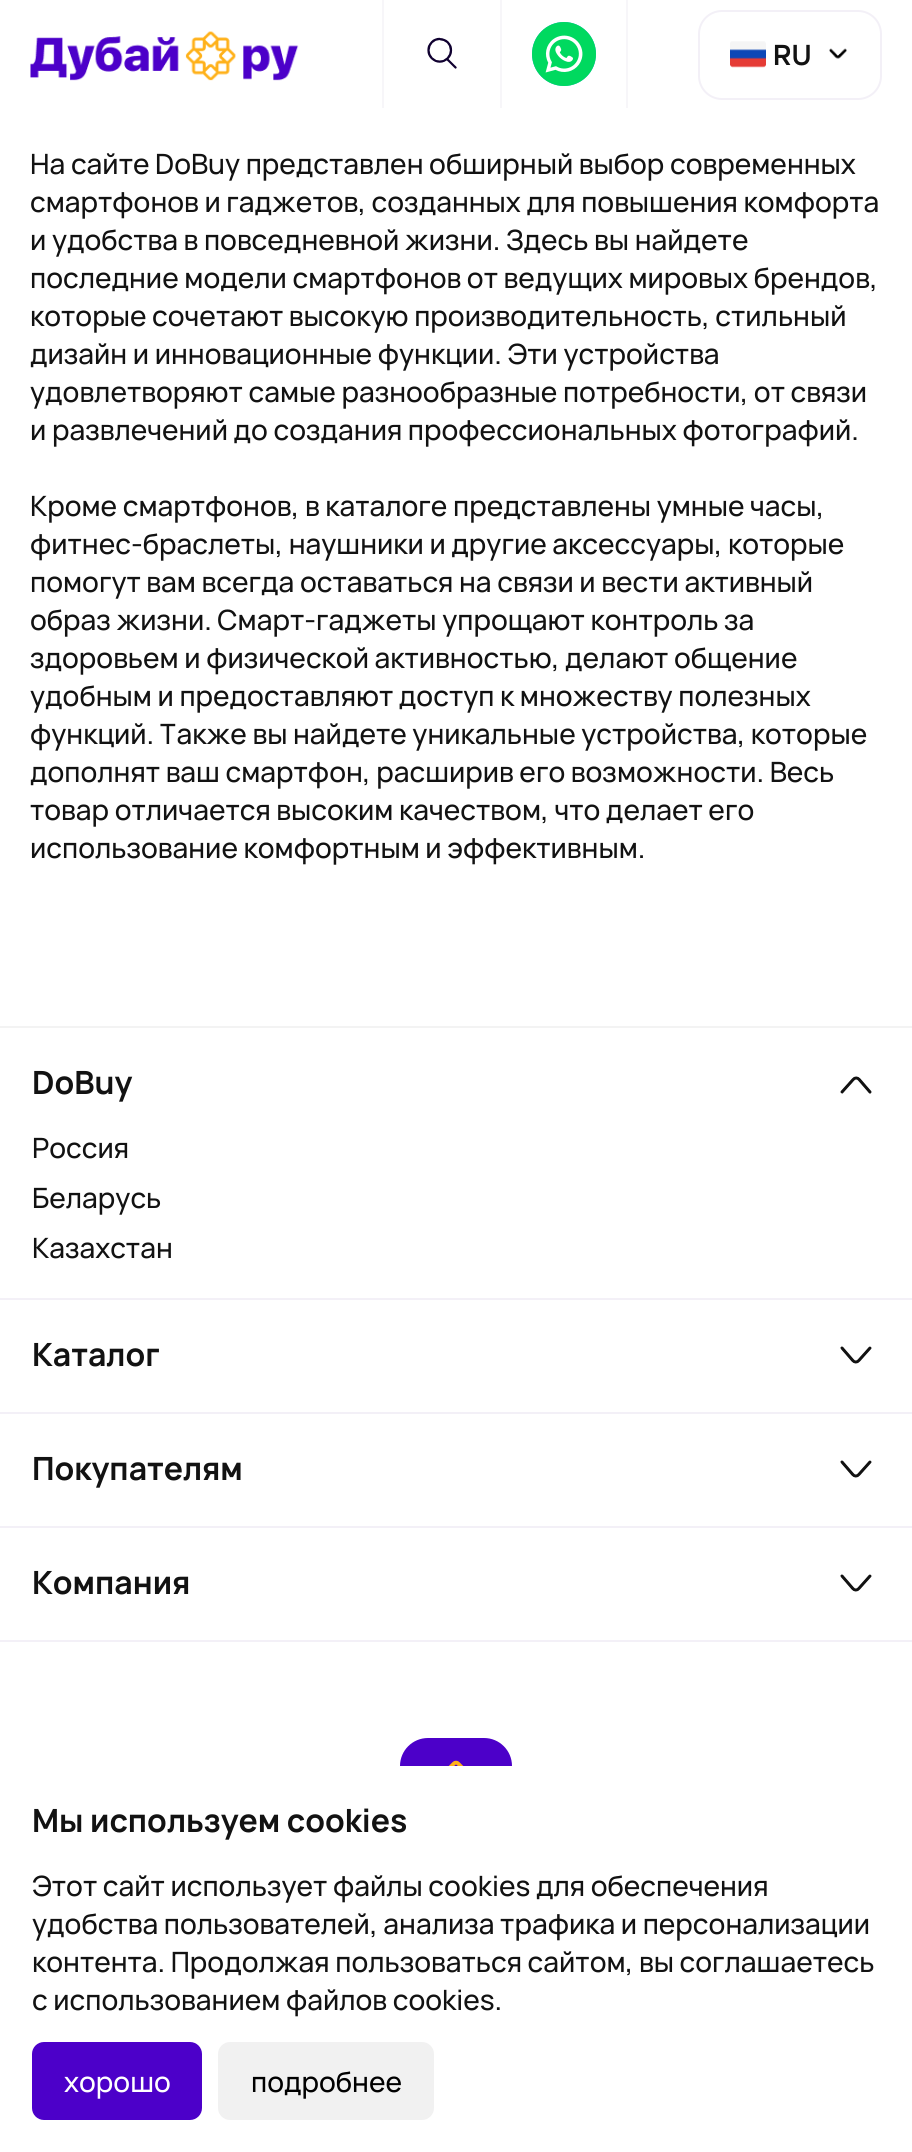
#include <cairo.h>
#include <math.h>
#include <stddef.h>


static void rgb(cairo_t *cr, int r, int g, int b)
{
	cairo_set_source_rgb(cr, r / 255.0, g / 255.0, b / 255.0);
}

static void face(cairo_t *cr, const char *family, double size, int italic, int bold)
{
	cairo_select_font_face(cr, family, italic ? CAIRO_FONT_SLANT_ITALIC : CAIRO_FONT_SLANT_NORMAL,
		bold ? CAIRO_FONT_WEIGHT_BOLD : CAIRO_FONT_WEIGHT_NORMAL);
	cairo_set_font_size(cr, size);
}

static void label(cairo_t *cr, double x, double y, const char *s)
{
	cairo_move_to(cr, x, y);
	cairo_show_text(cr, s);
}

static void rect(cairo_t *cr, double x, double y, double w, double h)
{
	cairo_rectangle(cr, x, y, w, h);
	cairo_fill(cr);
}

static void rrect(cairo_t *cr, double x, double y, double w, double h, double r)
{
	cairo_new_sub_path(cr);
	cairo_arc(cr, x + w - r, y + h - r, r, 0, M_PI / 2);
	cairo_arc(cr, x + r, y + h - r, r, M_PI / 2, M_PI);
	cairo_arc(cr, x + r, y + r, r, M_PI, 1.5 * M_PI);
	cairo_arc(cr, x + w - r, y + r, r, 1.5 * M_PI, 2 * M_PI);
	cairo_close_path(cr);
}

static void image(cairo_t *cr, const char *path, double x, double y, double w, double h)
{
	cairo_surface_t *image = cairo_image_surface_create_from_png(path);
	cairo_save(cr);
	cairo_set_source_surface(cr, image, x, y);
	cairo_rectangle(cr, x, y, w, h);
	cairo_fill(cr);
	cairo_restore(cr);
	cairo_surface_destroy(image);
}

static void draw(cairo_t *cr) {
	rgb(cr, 255, 255, 255);
	cairo_paint(cr);
	image(cr, "image0.png", 30, 31, 269, 50);
	rgb(cr, 247, 246, 249);
	rect(cr, 626, 0, 2, 108);
	rect(cr, 500, 0, 2, 108);
	rect(cr, 382, 0, 2, 108);
	image(cr, "image1.png", 427, 37, 30, 32);
	image(cr, "image2.png", 532, 22, 64, 64);
	image(cr, "image3.png", 532, 22, 64, 64);
	rrect(cr, 699, 11, 182, 88, 23);
	rgb(cr, 243, 240, 247);
	cairo_stroke(cr);
	image(cr, "image4.png", 730, 41, 36, 27);
	face(cr, "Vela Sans", 28, 0, 1);
	rgb(cr, 18, 18, 18);
	label(cr, 773, 65, "RU");
	image(cr, "image5.png", 829, 48, 18, 11);
	face(cr, "Vela Sans Medium", 28, 0, 0);
	label(cr, 30, 174, "На сайте DoBuy представлен обширный выбор современных");
	label(cr, 30, 212, "смартфонов и гаджетов, созданных для повышения комфорта");
	label(cr, 30, 250, "и удобства в повседневной жизни. Здесь вы найдете");
	label(cr, 30, 288, "последние модели смартфонов от ведущих мировых брендов,");
	label(cr, 30, 326, "которые сочетают высокую производительность, стильный");
	label(cr, 30, 364, "дизайн и инновационные функции. Эти устройства");
	label(cr, 30, 402, "удовлетворяют самые разнообразные потребности, от связи");
	label(cr, 30, 440, "и развлечений до создания профессиональных фотографий.");
	label(cr, 30, 516, "Кроме смартфонов, в каталоге представлены умные часы,");
	label(cr, 30, 554, "фитнес-браслеты, наушники и другие аксессуары, которые");
	label(cr, 30, 592, "помогут вам всегда оставаться на связи и вести активный");
	label(cr, 30, 630, "образ жизни. Смарт-гаджеты упрощают контроль за");
	label(cr, 30, 668, "здоровьем и физической активностью, делают общение");
	label(cr, 30, 706, "удобным и предоставляют доступ к множеству полезных");
	label(cr, 30, 744, "функций. Также вы найдете уникальные устройства, которые");
	label(cr, 30, 782, "дополнят ваш смартфон, расширив его возможности. Весь");
	label(cr, 30, 820, "товар отличается высоким качеством, что делает его");
	label(cr, 30, 858, "использование комфортным и эффективным.");
	rgb(cr, 243, 243, 243);
	rect(cr, 0, 1026, 912, 2);
	rgb(cr, 243, 240, 247);
	rect(cr, 0, 1298, 912, 2);
	face(cr, "Vela Sans", 32, 0, 1);
	rgb(cr, 18, 18, 18);
	label(cr, 32, 1094, "DoBuy");
	image(cr, "image6.png", 840, 1076, 32, 18);
	face(cr, "Vela Sans Medium", 28, 0, 0);
	label(cr, 32, 1158, "Россия");
	label(cr, 32, 1208, "Беларусь");
	label(cr, 32, 1258, "Казахстан");
	rgb(cr, 243, 240, 247);
	rect(cr, 0, 1412, 912, 2);
	face(cr, "Vela Sans", 32, 0, 1);
	rgb(cr, 18, 18, 18);
	label(cr, 32, 1366, "Каталог");
	image(cr, "image7.png", 840, 1346, 32, 18);
	rgb(cr, 243, 240, 247);
	rect(cr, 0, 1526, 912, 2);
	rgb(cr, 18, 18, 18);
	label(cr, 32, 1480, "Покупателям");
	image(cr, "image7.png", 840, 1460, 32, 18);
	rgb(cr, 243, 240, 247);
	rect(cr, 0, 1640, 912, 2);
	rgb(cr, 18, 18, 18);
	label(cr, 32, 1594, "Компания");
	image(cr, "image7.png", 840, 1574, 32, 18);
	image(cr, "image8.png", 400, 1738, 112, 28);
	label(cr, 32, 1832, "Мы используем cookies");
	face(cr, "Vela Sans Medium", 28, 0, 0);
	label(cr, 32, 1896, "Этот сайт использует файлы cookies для обеспечения");
	label(cr, 32, 1934, "удобства пользователей, анализа трафика и персонализации");
	label(cr, 32, 1972, "контента. Продолжая пользоваться сайтом, вы соглашаетесь");
	label(cr, 32, 2010, "с использованием файлов cookies.");
	rgb(cr, 76, 0, 201);
	rrect(cr, 32, 2042, 170, 78, 12);
	cairo_fill(cr);
	rgb(cr, 255, 255, 255);
	label(cr, 64, 2092, "хорошо");
	rgb(cr, 241, 241, 241);
	rrect(cr, 218, 2042, 216, 78, 12);
	cairo_fill(cr);
	rgb(cr, 0, 0, 0);
	label(cr, 251, 2092, "подробнее");
}

int main(void) {
	cairo_surface_t *surface = cairo_image_surface_create(CAIRO_FORMAT_RGB24, 912, 2152);
	cairo_t *cr = cairo_create(surface);
	cairo_font_options_t *options = cairo_font_options_create();
	cairo_font_options_set_hint_metrics(options, CAIRO_HINT_METRICS_OFF);
	cairo_font_options_set_hint_style(options, CAIRO_HINT_STYLE_NONE);
	cairo_set_font_options(cr, options);
	cairo_set_miter_limit(cr, 4);
	draw(cr);
	cairo_surface_write_to_png(surface, "render.png");
	cairo_font_options_destroy(options);
	cairo_destroy(cr);
	cairo_surface_destroy(surface);
	return 0;
}
